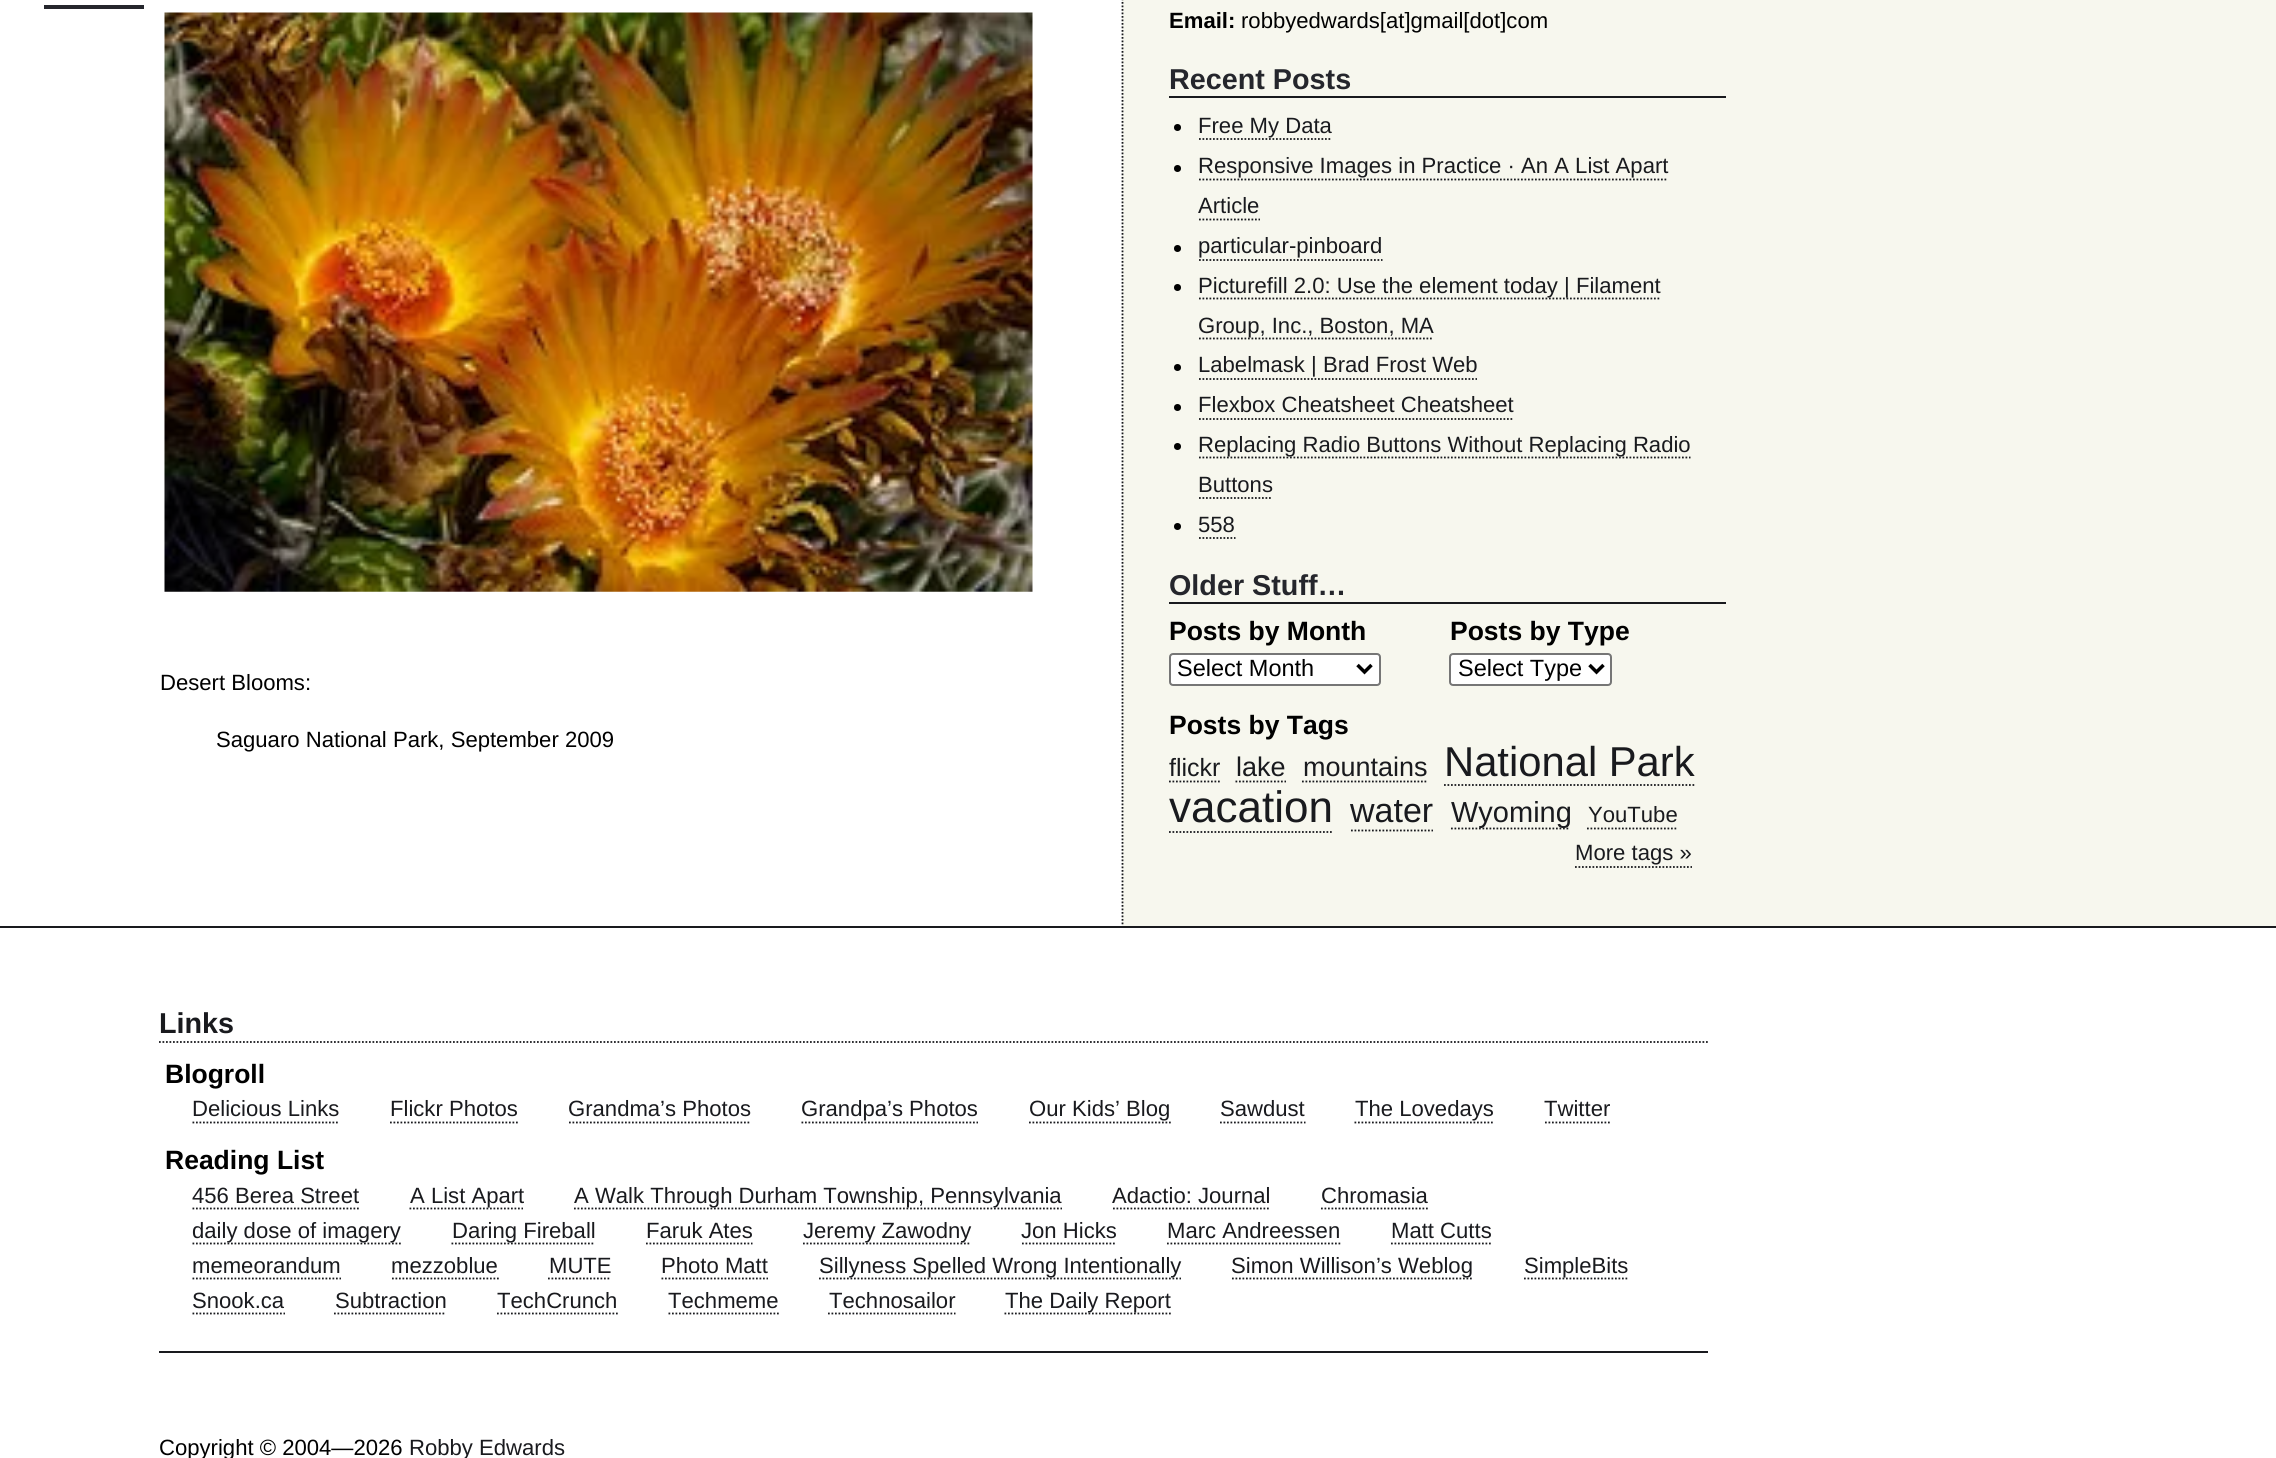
#include <cairo.h>
#include <math.h>
#include <stddef.h>


static void rgb(cairo_t *cr, int r, int g, int b)
{
	cairo_set_source_rgb(cr, r / 255.0, g / 255.0, b / 255.0);
}

static void face(cairo_t *cr, const char *family, double size, int italic, int bold)
{
	cairo_select_font_face(cr, family, italic ? CAIRO_FONT_SLANT_ITALIC : CAIRO_FONT_SLANT_NORMAL,
		bold ? CAIRO_FONT_WEIGHT_BOLD : CAIRO_FONT_WEIGHT_NORMAL);
	cairo_set_font_size(cr, size);
}

static void label(cairo_t *cr, double x, double y, const char *s)
{
	cairo_move_to(cr, x, y);
	cairo_show_text(cr, s);
}

static void rect(cairo_t *cr, double x, double y, double w, double h)
{
	cairo_rectangle(cr, x, y, w, h);
	cairo_fill(cr);
}

static void rrect(cairo_t *cr, double x, double y, double w, double h, double r)
{
	cairo_new_sub_path(cr);
	cairo_arc(cr, x + w - r, y + h - r, r, 0, M_PI / 2);
	cairo_arc(cr, x + r, y + h - r, r, M_PI / 2, M_PI);
	cairo_arc(cr, x + r, y + r, r, M_PI, 1.5 * M_PI);
	cairo_arc(cr, x + w - r, y + r, r, 1.5 * M_PI, 2 * M_PI);
	cairo_close_path(cr);
}

static void image(cairo_t *cr, const char *path, double x, double y, double w, double h)
{
	cairo_surface_t *image = cairo_image_surface_create_from_png(path);
	cairo_save(cr);
	cairo_set_source_surface(cr, image, x, y);
	cairo_rectangle(cr, x, y, w, h);
	cairo_fill(cr);
	cairo_restore(cr);
	cairo_surface_destroy(image);
}

static void draw(cairo_t *cr) {
	rgb(cr, 255, 255, 255);
	cairo_paint(cr);
	rgb(cr, 247, 247, 238);
	rect(cr, 1122, 0, 1154, 926);
	rgb(cr, 37, 38, 44);
	rect(cr, 44, 5, 100, 4);
	image(cr, "image0.png", 164, 12, 869, 580);
	face(cr, "Liberation Sans", 22.1, 0, 0);
	rgb(cr, 0, 0, 0);
	label(cr, 160, 690, "Desert Blooms:");
	label(cr, 216, 747, "Saguaro National Park, September 2009");
	cairo_new_path(cr);
	cairo_move_to(cr, 1122.5, -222);
	cairo_line_to(cr, 1122.5, 926);
	rgb(cr, 25, 26, 30);
	cairo_set_line_width(cr, 1.8);
	cairo_set_dash(cr, (double[]){1.75, 1.75}, 2, 0);
	cairo_stroke(cr);
	face(cr, "Liberation Sans", 22.1, 0, 1);
	rgb(cr, 0, 0, 0);
	label(cr, 1169, 28, "Email:");
	face(cr, "Liberation Sans", 22.1, 0, 0);
	label(cr, 1241, 28, "robbyedwards[at]gmail[dot]com");
	rgb(cr, 25, 26, 30);
	rect(cr, 1169, 96, 557, 2);
	face(cr, "Liberation Sans", 28.75, 0, 1);
	rgb(cr, 37, 38, 44);
	label(cr, 1169, 89, "Recent Posts");
	rgb(cr, 0, 0, 0);
	cairo_new_path(cr);
	cairo_arc(cr, 1177.5, 127.5, 3.5, 0, 2 * M_PI);
	cairo_fill(cr);
	face(cr, "Liberation Sans", 22.1, 0, 0);
	rgb(cr, 25, 26, 30);
	label(cr, 1198, 133, "Free My Data");
	cairo_new_path(cr);
	cairo_move_to(cr, 1199, 139);
	cairo_line_to(cr, 1332, 139);
	cairo_stroke(cr);
	rgb(cr, 0, 0, 0);
	cairo_arc(cr, 1177.5, 168.5, 3.5, 0, 2 * M_PI);
	cairo_fill(cr);
	rgb(cr, 25, 26, 30);
	label(cr, 1198, 173, "Responsive Images in Practice · An A List Apart");
	cairo_new_path(cr);
	cairo_move_to(cr, 1199, 179.5);
	cairo_line_to(cr, 1668, 179.5);
	cairo_stroke(cr);
	label(cr, 1198, 213, "Article");
	cairo_new_path(cr);
	cairo_move_to(cr, 1199, 219.5);
	cairo_line_to(cr, 1260, 219.5);
	cairo_stroke(cr);
	rgb(cr, 0, 0, 0);
	cairo_arc(cr, 1177.5, 248.5, 3.5, 0, 2 * M_PI);
	cairo_fill(cr);
	rgb(cr, 25, 26, 30);
	label(cr, 1198, 253, "particular-pinboard");
	cairo_new_path(cr);
	cairo_move_to(cr, 1199, 260);
	cairo_line_to(cr, 1382.5, 260);
	cairo_stroke(cr);
	rgb(cr, 0, 0, 0);
	cairo_arc(cr, 1177.5, 287.5, 3.5, 0, 2 * M_PI);
	cairo_fill(cr);
	cairo_new_path(cr);
	cairo_move_to(cr, 1199, 298.5);
	cairo_line_to(cr, 1661, 298.5);
	rgb(cr, 25, 26, 30);
	cairo_stroke(cr);
	label(cr, 1198, 293, "Picturefill 2.0: Use the element today | Filament");
	cairo_new_path(cr);
	cairo_move_to(cr, 1199, 338.5);
	cairo_line_to(cr, 1433, 338.5);
	cairo_stroke(cr);
	label(cr, 1198, 333, "Group, Inc., Boston, MA");
	rgb(cr, 0, 0, 0);
	cairo_new_path(cr);
	cairo_arc(cr, 1177.5, 367.5, 3.5, 0, 2 * M_PI);
	cairo_fill(cr);
	rgb(cr, 25, 26, 30);
	label(cr, 1198, 372, "Labelmask | Brad Frost Web");
	cairo_new_path(cr);
	cairo_move_to(cr, 1199, 379);
	cairo_line_to(cr, 1477, 379);
	cairo_stroke(cr);
	rgb(cr, 0, 0, 0);
	cairo_arc(cr, 1177.5, 407.5, 3.5, 0, 2 * M_PI);
	cairo_fill(cr);
	rgb(cr, 25, 26, 30);
	label(cr, 1198, 412, "Flexbox Cheatsheet Cheatsheet");
	cairo_new_path(cr);
	cairo_move_to(cr, 1199, 419);
	cairo_line_to(cr, 1514, 419);
	cairo_stroke(cr);
	rgb(cr, 0, 0, 0);
	cairo_arc(cr, 1177.5, 446.5, 3.5, 0, 2 * M_PI);
	cairo_fill(cr);
	cairo_new_path(cr);
	cairo_move_to(cr, 1199, 457.5);
	cairo_line_to(cr, 1690.5, 457.5);
	rgb(cr, 25, 26, 30);
	cairo_stroke(cr);
	label(cr, 1198, 452, "Replacing Radio Buttons Without Replacing Radio");
	label(cr, 1198, 492, "Buttons");
	cairo_new_path(cr);
	cairo_move_to(cr, 1199, 498);
	cairo_line_to(cr, 1272, 498);
	cairo_stroke(cr);
	rgb(cr, 0, 0, 0);
	cairo_arc(cr, 1177.5, 526.5, 3.5, 0, 2 * M_PI);
	cairo_fill(cr);
	rgb(cr, 25, 26, 30);
	label(cr, 1198, 532, "558");
	cairo_new_path(cr);
	cairo_move_to(cr, 1199, 538);
	cairo_line_to(cr, 1235.5, 538);
	cairo_stroke(cr);
	rect(cr, 1169, 602, 557, 2);
	face(cr, "Liberation Sans", 28.75, 0, 1);
	rgb(cr, 37, 38, 44);
	label(cr, 1169, 595, "Older Stuff…");
	face(cr, "Liberation Sans", 26.5, 0, 1);
	rgb(cr, 0, 0, 0);
	label(cr, 1169, 640, "Posts by Month");
	rgb(cr, 255, 255, 255);
	rrect(cr, 1170, 654, 210, 31, 3);
	cairo_fill_preserve(cr);
	rgb(cr, 118, 118, 118);
	cairo_set_line_width(cr, 2);
	cairo_set_dash(cr, NULL, 0, 0);
	cairo_stroke(cr);
	cairo_new_path(cr);
	cairo_move_to(cr, 1357.5, 665);
	cairo_line_to(cr, 1364.5, 672);
	cairo_line_to(cr, 1371.5, 665);
	rgb(cr, 0, 0, 0);
	cairo_set_line_width(cr, 3.5);
	cairo_stroke(cr);
	face(cr, "Liberation Sans", 23.5, 0, 0);
	label(cr, 1177, 676, "Select Month");
	face(cr, "Liberation Sans", 26.5, 0, 1);
	label(cr, 1450, 640, "Posts by Type");
	rgb(cr, 255, 255, 255);
	rrect(cr, 1450, 654, 161, 31, 3);
	cairo_fill_preserve(cr);
	rgb(cr, 118, 118, 118);
	cairo_set_line_width(cr, 2);
	cairo_stroke(cr);
	cairo_new_path(cr);
	cairo_move_to(cr, 1589.5, 665);
	cairo_line_to(cr, 1596.5, 672);
	cairo_line_to(cr, 1603.5, 665);
	rgb(cr, 0, 0, 0);
	cairo_set_line_width(cr, 3.5);
	cairo_stroke(cr);
	face(cr, "Liberation Sans", 23.5, 0, 0);
	label(cr, 1458, 676, "Select Type");
	face(cr, "Liberation Sans", 26.5, 0, 1);
	label(cr, 1169, 734, "Posts by Tags");
	face(cr, "Liberation Sans", 25, 0, 0);
	rgb(cr, 25, 26, 30);
	label(cr, 1169, 776, "flickr");
	cairo_new_path(cr);
	cairo_move_to(cr, 1169, 781.5);
	cairo_line_to(cr, 1220, 781.5);
	cairo_set_line_width(cr, 1.8);
	cairo_set_dash(cr, (double[]){1.75, 1.75}, 2, 0);
	cairo_stroke(cr);
	face(cr, "Liberation Sans", 27, 0, 0);
	label(cr, 1236, 776, "lake");
	cairo_new_path(cr);
	cairo_move_to(cr, 1235.5, 781.5);
	cairo_line_to(cr, 1286, 781.5);
	cairo_stroke(cr);
	label(cr, 1303, 776, "mountains");
	cairo_new_path(cr);
	cairo_move_to(cr, 1302, 781.5);
	cairo_line_to(cr, 1428, 781.5);
	cairo_stroke(cr);
	face(cr, "Liberation Sans", 41.75, 0, 0);
	label(cr, 1444, 776, "National Park");
	cairo_new_path(cr);
	cairo_move_to(cr, 1444, 785);
	cairo_line_to(cr, 1696, 785);
	cairo_stroke(cr);
	face(cr, "Liberation Sans", 44, 0, 0);
	label(cr, 1169, 822, "vacation");
	cairo_new_path(cr);
	cairo_move_to(cr, 1169, 832);
	cairo_line_to(cr, 1333.5, 832);
	cairo_stroke(cr);
	face(cr, "Liberation Sans", 34, 0, 0);
	label(cr, 1350, 822, "water");
	cairo_new_path(cr);
	cairo_move_to(cr, 1351, 830.5);
	cairo_line_to(cr, 1433, 830.5);
	cairo_stroke(cr);
	cairo_new_path(cr);
	cairo_move_to(cr, 1451, 828.5);
	cairo_line_to(cr, 1570, 828.5);
	cairo_stroke(cr);
	face(cr, "Liberation Sans", 29, 0, 0);
	label(cr, 1451, 822, "Wyoming");
	face(cr, "Liberation Sans", 22.1, 0, 0);
	label(cr, 1588, 822, "YouTube");
	cairo_new_path(cr);
	cairo_move_to(cr, 1587, 828.5);
	cairo_line_to(cr, 1676.5, 828.5);
	cairo_stroke(cr);
	label(cr, 1575, 860, "More tags »");
	cairo_new_path(cr);
	cairo_move_to(cr, 1575, 867);
	cairo_line_to(cr, 1692, 867);
	cairo_stroke(cr);
	rect(cr, 0, 926, 2276, 2);
	cairo_new_path(cr);
	cairo_move_to(cr, 159, 1042);
	cairo_line_to(cr, 1708, 1042);
	cairo_stroke(cr);
	face(cr, "Liberation Sans", 28.75, 0, 1);
	label(cr, 159, 1033, "Links");
	rect(cr, 159, 1351, 1549, 2);
	face(cr, "Liberation Sans", 26.5, 0, 1);
	rgb(cr, 0, 0, 0);
	label(cr, 165, 1083, "Blogroll");
	face(cr, "Liberation Sans", 22.1, 0, 0);
	rgb(cr, 25, 26, 30);
	label(cr, 192, 1116, "Delicious Links");
	cairo_new_path(cr);
	cairo_move_to(cr, 192.5, 1122.5);
	cairo_line_to(cr, 339.5, 1122.5);
	cairo_stroke(cr);
	label(cr, 390, 1116, "Flickr Photos");
	cairo_new_path(cr);
	cairo_move_to(cr, 390, 1122.5);
	cairo_line_to(cr, 518, 1122.5);
	cairo_stroke(cr);
	label(cr, 568, 1116, "Grandma’s Photos");
	cairo_new_path(cr);
	cairo_move_to(cr, 569, 1122.5);
	cairo_line_to(cr, 751, 1122.5);
	cairo_stroke(cr);
	label(cr, 801, 1116, "Grandpa’s Photos");
	cairo_new_path(cr);
	cairo_move_to(cr, 801.5, 1122.5);
	cairo_line_to(cr, 978, 1122.5);
	cairo_stroke(cr);
	label(cr, 1029, 1116, "Our Kids’ Blog");
	cairo_new_path(cr);
	cairo_move_to(cr, 1029, 1122.5);
	cairo_line_to(cr, 1171, 1122.5);
	cairo_stroke(cr);
	label(cr, 1220, 1116, "Sawdust");
	cairo_new_path(cr);
	cairo_move_to(cr, 1220, 1122.5);
	cairo_line_to(cr, 1305.5, 1122.5);
	cairo_stroke(cr);
	label(cr, 1355, 1116, "The Lovedays");
	cairo_new_path(cr);
	cairo_move_to(cr, 1354.5, 1122.5);
	cairo_line_to(cr, 1494.5, 1122.5);
	cairo_stroke(cr);
	label(cr, 1544, 1116, "Twitter");
	cairo_new_path(cr);
	cairo_move_to(cr, 1545, 1122.5);
	cairo_line_to(cr, 1610, 1122.5);
	cairo_stroke(cr);
	face(cr, "Liberation Sans", 26.5, 0, 1);
	rgb(cr, 0, 0, 0);
	label(cr, 165, 1169, "Reading List");
	face(cr, "Liberation Sans", 22.1, 0, 0);
	rgb(cr, 25, 26, 30);
	label(cr, 192, 1203, "456 Berea Street");
	cairo_new_path(cr);
	cairo_move_to(cr, 192.5, 1208.5);
	cairo_line_to(cr, 359, 1208.5);
	cairo_stroke(cr);
	cairo_new_path(cr);
	cairo_move_to(cr, 409.5, 1208.5);
	cairo_line_to(cr, 523, 1208.5);
	cairo_stroke(cr);
	label(cr, 410, 1203, "A List Apart");
	cairo_new_path(cr);
	cairo_move_to(cr, 574, 1208.5);
	cairo_line_to(cr, 1062, 1208.5);
	cairo_stroke(cr);
	label(cr, 574, 1203, "A Walk Through Durham Township, Pennsylvania");
	label(cr, 1112, 1203, "Adactio: Journal");
	cairo_new_path(cr);
	cairo_move_to(cr, 1113, 1208.5);
	cairo_line_to(cr, 1270.5, 1208.5);
	cairo_stroke(cr);
	label(cr, 1321, 1203, "Chromasia");
	cairo_new_path(cr);
	cairo_move_to(cr, 1321, 1208.5);
	cairo_line_to(cr, 1428, 1208.5);
	cairo_stroke(cr);
	cairo_new_path(cr);
	cairo_move_to(cr, 192.5, 1243.5);
	cairo_line_to(cr, 401, 1243.5);
	cairo_stroke(cr);
	label(cr, 192, 1238, "daily dose of imagery");
	cairo_new_path(cr);
	cairo_move_to(cr, 451.5, 1243.5);
	cairo_line_to(cr, 595, 1243.5);
	cairo_stroke(cr);
	label(cr, 452, 1238, "Daring Fireball");
	label(cr, 646, 1238, "Faruk Ates");
	cairo_new_path(cr);
	cairo_move_to(cr, 646, 1243.5);
	cairo_line_to(cr, 752.5, 1243.5);
	cairo_stroke(cr);
	cairo_new_path(cr);
	cairo_move_to(cr, 803, 1243.5);
	cairo_line_to(cr, 971, 1243.5);
	cairo_stroke(cr);
	label(cr, 803, 1238, "Jeremy Zawodny");
	label(cr, 1021, 1238, "Jon Hicks");
	cairo_new_path(cr);
	cairo_move_to(cr, 1022, 1243.5);
	cairo_line_to(cr, 1116.5, 1243.5);
	cairo_stroke(cr);
	label(cr, 1167, 1238, "Marc Andreessen");
	cairo_new_path(cr);
	cairo_move_to(cr, 1167, 1243.5);
	cairo_line_to(cr, 1340.5, 1243.5);
	cairo_stroke(cr);
	label(cr, 1391, 1238, "Matt Cutts");
	cairo_new_path(cr);
	cairo_move_to(cr, 1391, 1243.5);
	cairo_line_to(cr, 1491, 1243.5);
	cairo_stroke(cr);
	label(cr, 192, 1273, "memeorandum");
	cairo_new_path(cr);
	cairo_move_to(cr, 192.5, 1278.5);
	cairo_line_to(cr, 341, 1278.5);
	cairo_stroke(cr);
	label(cr, 391, 1273, "mezzoblue");
	cairo_new_path(cr);
	cairo_move_to(cr, 392, 1278.5);
	cairo_line_to(cr, 499, 1278.5);
	cairo_stroke(cr);
	label(cr, 549, 1273, "MUTE");
	cairo_new_path(cr);
	cairo_move_to(cr, 548, 1278.5);
	cairo_line_to(cr, 611, 1278.5);
	cairo_stroke(cr);
	label(cr, 661, 1273, "Photo Matt");
	cairo_new_path(cr);
	cairo_move_to(cr, 661.5, 1278.5);
	cairo_line_to(cr, 768, 1278.5);
	cairo_stroke(cr);
	cairo_new_path(cr);
	cairo_move_to(cr, 819, 1278.5);
	cairo_line_to(cr, 1181, 1278.5);
	cairo_stroke(cr);
	label(cr, 819, 1273, "Sillyness Spelled Wrong Intentionally");
	cairo_new_path(cr);
	cairo_move_to(cr, 1232, 1278.5);
	cairo_line_to(cr, 1473.5, 1278.5);
	cairo_stroke(cr);
	label(cr, 1231, 1273, "Simon Willison’s Weblog");
	cairo_new_path(cr);
	cairo_move_to(cr, 1524, 1278.5);
	cairo_line_to(cr, 1627.5, 1278.5);
	cairo_stroke(cr);
	label(cr, 1524, 1273, "SimpleBits");
	label(cr, 192, 1308, "Snook.ca");
	cairo_new_path(cr);
	cairo_move_to(cr, 192.5, 1313.5);
	cairo_line_to(cr, 285, 1313.5);
	cairo_stroke(cr);
	label(cr, 335, 1308, "Subtraction");
	cairo_new_path(cr);
	cairo_move_to(cr, 334, 1313.5);
	cairo_line_to(cr, 446, 1313.5);
	cairo_stroke(cr);
	label(cr, 497, 1308, "TechCrunch");
	cairo_new_path(cr);
	cairo_move_to(cr, 497, 1313.5);
	cairo_line_to(cr, 618, 1313.5);
	cairo_stroke(cr);
	label(cr, 668, 1308, "Techmeme");
	cairo_new_path(cr);
	cairo_move_to(cr, 668.5, 1313.5);
	cairo_line_to(cr, 779, 1313.5);
	cairo_stroke(cr);
	label(cr, 829, 1308, "Technosailor");
	cairo_new_path(cr);
	cairo_move_to(cr, 828, 1313.5);
	cairo_line_to(cr, 955.5, 1313.5);
	cairo_stroke(cr);
	cairo_new_path(cr);
	cairo_move_to(cr, 1004.5, 1313.5);
	cairo_line_to(cr, 1171, 1313.5);
	cairo_stroke(cr);
	label(cr, 1005, 1308, "The Daily Report");
	rgb(cr, 0, 0, 0);
	label(cr, 159, 1455, "Copyright © 2004—2026");
	rgb(cr, 25, 26, 30);
	label(cr, 409, 1455, "Robby Edwards");
}

int main(void) {
	cairo_surface_t *surface = cairo_image_surface_create(CAIRO_FORMAT_RGB24, 2276, 1458);
	cairo_t *cr = cairo_create(surface);
	cairo_font_options_t *options = cairo_font_options_create();
	cairo_font_options_set_hint_metrics(options, CAIRO_HINT_METRICS_OFF);
	cairo_font_options_set_hint_style(options, CAIRO_HINT_STYLE_NONE);
	cairo_set_font_options(cr, options);
	cairo_set_miter_limit(cr, 4);
	draw(cr);
	cairo_surface_write_to_png(surface, "render.png");
	cairo_font_options_destroy(options);
	cairo_destroy(cr);
	cairo_surface_destroy(surface);
	return 0;
}
